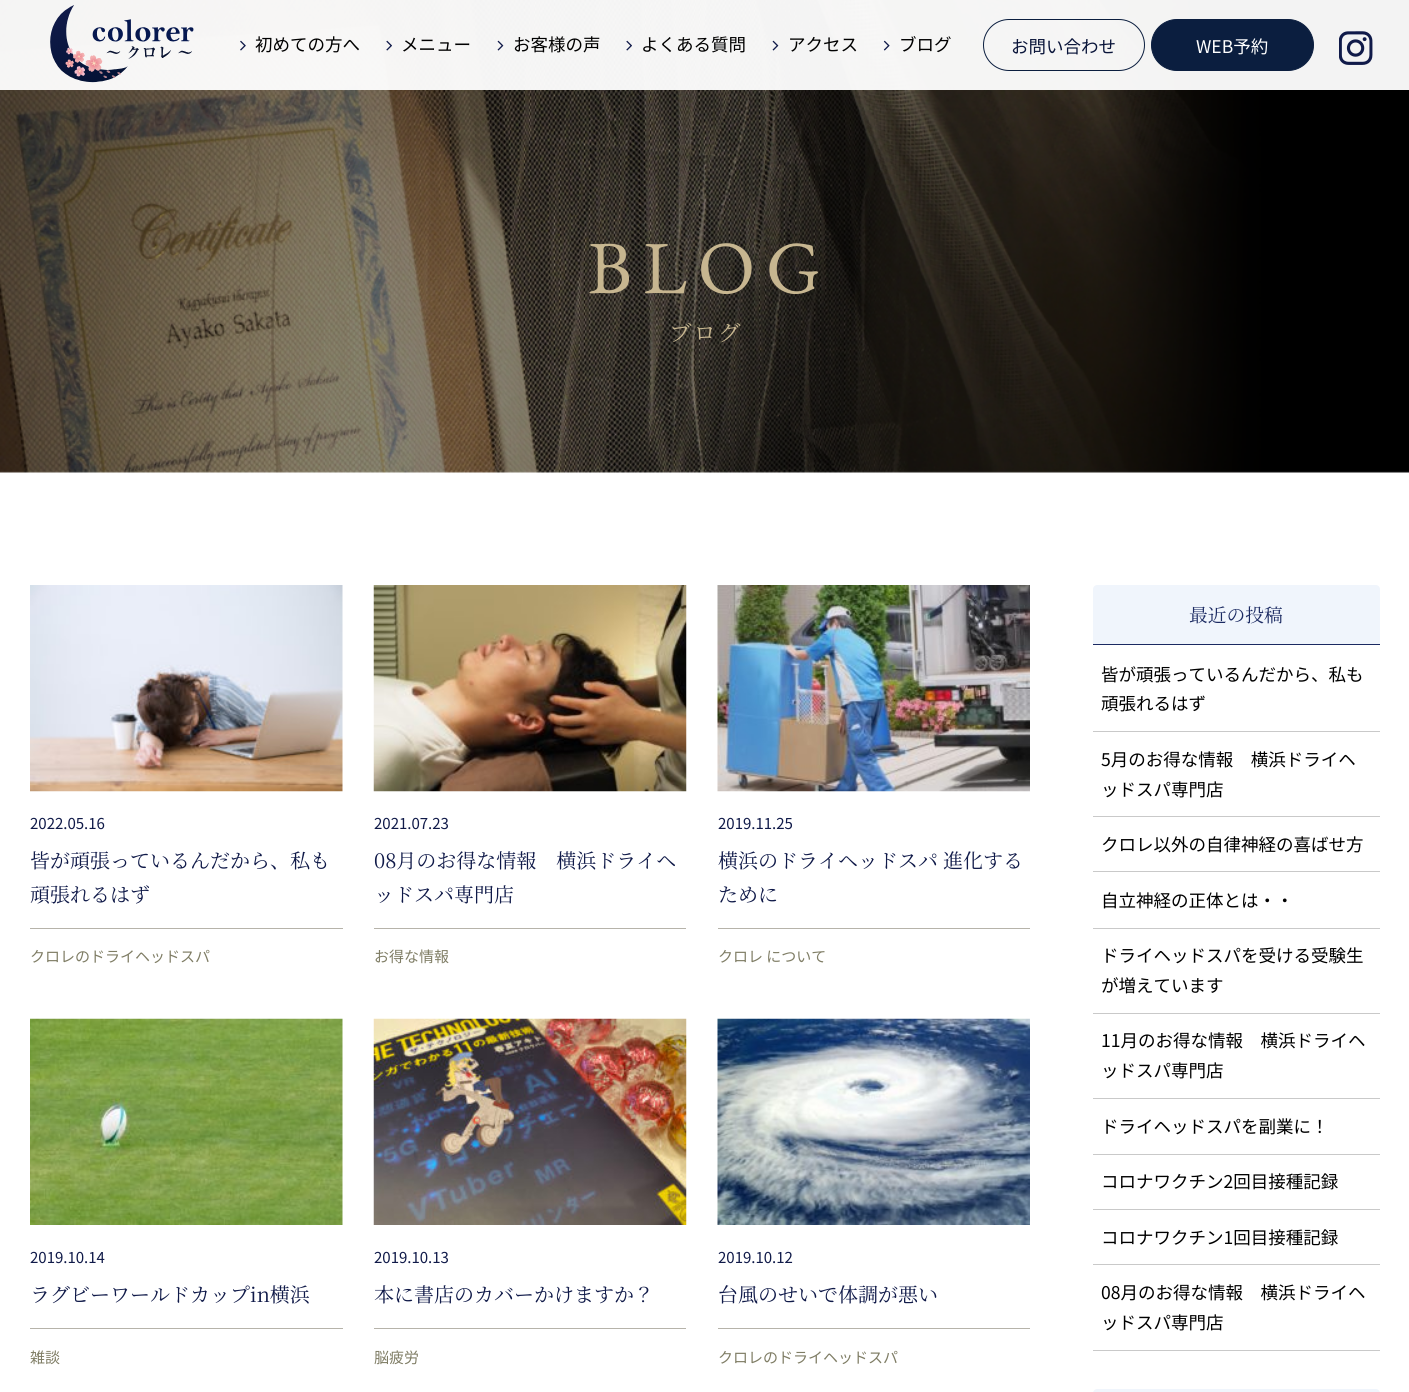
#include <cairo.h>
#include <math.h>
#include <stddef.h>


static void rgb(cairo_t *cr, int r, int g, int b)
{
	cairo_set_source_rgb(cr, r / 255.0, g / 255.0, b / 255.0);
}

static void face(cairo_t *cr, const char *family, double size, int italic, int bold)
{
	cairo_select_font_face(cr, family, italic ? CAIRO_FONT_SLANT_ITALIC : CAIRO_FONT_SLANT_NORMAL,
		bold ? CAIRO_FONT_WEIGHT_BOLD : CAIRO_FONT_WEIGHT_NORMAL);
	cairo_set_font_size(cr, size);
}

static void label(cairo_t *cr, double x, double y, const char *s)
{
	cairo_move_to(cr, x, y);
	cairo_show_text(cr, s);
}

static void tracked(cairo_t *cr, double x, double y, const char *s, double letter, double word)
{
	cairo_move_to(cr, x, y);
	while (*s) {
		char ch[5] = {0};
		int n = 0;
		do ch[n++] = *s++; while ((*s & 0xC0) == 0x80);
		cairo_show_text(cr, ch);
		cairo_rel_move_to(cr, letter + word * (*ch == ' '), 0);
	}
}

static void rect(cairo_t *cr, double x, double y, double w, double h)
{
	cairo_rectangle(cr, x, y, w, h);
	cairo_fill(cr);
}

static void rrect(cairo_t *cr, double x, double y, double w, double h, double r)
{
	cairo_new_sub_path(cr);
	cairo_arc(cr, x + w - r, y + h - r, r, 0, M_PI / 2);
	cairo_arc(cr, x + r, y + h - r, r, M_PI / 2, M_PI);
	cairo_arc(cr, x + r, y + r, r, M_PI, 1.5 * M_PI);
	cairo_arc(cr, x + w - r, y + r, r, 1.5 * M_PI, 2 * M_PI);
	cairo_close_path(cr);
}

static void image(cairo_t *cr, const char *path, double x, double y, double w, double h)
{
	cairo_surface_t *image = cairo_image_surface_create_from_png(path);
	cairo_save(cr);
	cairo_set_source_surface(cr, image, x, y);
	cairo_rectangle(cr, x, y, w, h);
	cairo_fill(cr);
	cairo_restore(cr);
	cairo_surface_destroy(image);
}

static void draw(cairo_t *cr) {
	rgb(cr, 255, 255, 255);
	cairo_paint(cr);
	image(cr, "image8.png", 0, 0, 1409, 473);
	cairo_set_source_rgba(cr, 1, 1, 1, 0.95);
	rect(cr, 0, 0, 1409, 90);
	image(cr, "image0.png", 50, 5, 144, 78);
	image(cr, "image1.png", 240, 40, 6, 11);
	face(cr, "Noto Sans JP Thin", 17.5, 0, 0);
	rgb(cr, 0, 0, 0);
	label(cr, 255, 51, "初めての方へ");
	image(cr, "image2.png", 386, 40, 6, 11);
	label(cr, 401, 51, "メニュー");
	image(cr, "image3.png", 497, 40, 7, 11);
	label(cr, 513, 51, "お客様の声");
	image(cr, "image4.png", 626, 40, 6, 11);
	label(cr, 641, 51, "よくある質問");
	image(cr, "image5.png", 772, 40, 7, 11);
	label(cr, 788, 51, "アクセス");
	image(cr, "image6.png", 883, 40, 7, 11);
	label(cr, 899, 51, "ブログ");
	rrect(cr, 983.5, 19.5, 161, 51, 25.5);
	rgb(cr, 11, 30, 63);
	cairo_set_line_width(cr, 1);
	cairo_stroke(cr);
	rgb(cr, 10, 21, 58);
	label(cr, 1011, 53, "お問い合わせ");
	rgb(cr, 11, 30, 63);
	rrect(cr, 1151.5, 19.5, 162, 51, 25.5);
	cairo_fill_preserve(cr);
	cairo_stroke(cr);
	rgb(cr, 255, 255, 255);
	label(cr, 1196, 53, "WEB予約");
	image(cr, "image7.png", 1339, 31, 34, 34);
	face(cr, "EB Garamond", 75, 0, 0);
	rgb(cr, 199, 182, 144);
	tracked(cr, 588, 293, "BLOG", 11, 0);
	face(cr, "Noto Serif JP ExtraLight", 22.5, 0, 0);
	tracked(cr, 669, 341, "ブログ", 2, 0);
	image(cr, "image9.png", 30, 585, 313, 207);
	face(cr, "Noto Sans JP Thin", 15, 0, 0);
	rgb(cr, 16, 26, 73);
	label(cr, 30, 829, "2022.05.16");
	face(cr, "Noto Serif JP ExtraLight", 20, 0, 0);
	label(cr, 30, 868, "皆が頑張っているんだから、私も");
	label(cr, 30, 902, "頑張れるはず");
	rgb(cr, 182, 179, 170);
	rect(cr, 30, 928, 313, 1);
	face(cr, "Noto Sans JP Thin", 15, 0, 0);
	rgb(cr, 127, 125, 101);
	label(cr, 30, 962, "クロレのドライヘッドスパ");
	image(cr, "image10.png", 373, 585, 314, 207);
	rgb(cr, 16, 26, 73);
	label(cr, 374, 829, "2021.07.23");
	face(cr, "Noto Serif JP ExtraLight", 20, 0, 0);
	label(cr, 374, 868, "08月のお得な情報　横浜ドライヘ");
	label(cr, 374, 902, "ッドスパ専門店");
	rgb(cr, 182, 179, 170);
	rect(cr, 374, 928, 312, 1);
	face(cr, "Noto Sans JP Thin", 15, 0, 0);
	rgb(cr, 127, 125, 101);
	label(cr, 374, 962, "お得な情報");
	image(cr, "image11.png", 717, 585, 313, 207);
	rgb(cr, 16, 26, 73);
	label(cr, 718, 829, "2019.11.25");
	face(cr, "Noto Serif JP ExtraLight", 20, 0, 0);
	label(cr, 718, 868, "横浜のドライヘッドスパ 進化する");
	label(cr, 718, 902, "ために");
	rgb(cr, 182, 179, 170);
	rect(cr, 718, 928, 312, 1);
	face(cr, "Noto Sans JP Thin", 15, 0, 0);
	rgb(cr, 127, 125, 101);
	label(cr, 718, 962, "クロレ について");
	image(cr, "image12.png", 30, 1018, 313, 207);
	rgb(cr, 16, 26, 73);
	label(cr, 30, 1263, "2019.10.14");
	face(cr, "Noto Serif JP ExtraLight", 20, 0, 0);
	label(cr, 30, 1302, "ラグビーワールドカップin横浜");
	rgb(cr, 182, 179, 170);
	rect(cr, 30, 1328, 313, 1);
	face(cr, "Noto Sans JP Thin", 15, 0, 0);
	rgb(cr, 127, 125, 101);
	label(cr, 30, 1363, "雑談");
	image(cr, "image13.png", 373, 1018, 314, 207);
	rgb(cr, 16, 26, 73);
	label(cr, 374, 1263, "2019.10.13");
	face(cr, "Noto Serif JP ExtraLight", 20, 0, 0);
	label(cr, 374, 1302, "本に書店のカバーかけますか？");
	rgb(cr, 182, 179, 170);
	rect(cr, 374, 1328, 312, 1);
	face(cr, "Noto Sans JP Thin", 15, 0, 0);
	rgb(cr, 127, 125, 101);
	label(cr, 374, 1363, "脳疲労");
	image(cr, "image14.png", 717, 1018, 313, 207);
	rgb(cr, 16, 26, 73);
	label(cr, 718, 1263, "2019.10.12");
	face(cr, "Noto Serif JP ExtraLight", 20, 0, 0);
	label(cr, 718, 1302, "台風のせいで体調が悪い");
	rgb(cr, 182, 179, 170);
	rect(cr, 718, 1328, 312, 1);
	face(cr, "Noto Sans JP Thin", 15, 0, 0);
	rgb(cr, 127, 125, 101);
	label(cr, 718, 1363, "クロレのドライヘッドスパ");
	rgb(cr, 240, 245, 252);
	cairo_new_path(cr);
	cairo_move_to(cr, 1097, 585);
	cairo_line_to(cr, 1376, 585);
	cairo_curve_to(cr, 1378, 585, 1380, 587, 1380, 589);
	cairo_line_to(cr, 1380, 645);
	cairo_line_to(cr, 1093, 645);
	cairo_line_to(cr, 1093, 589);
	cairo_curve_to(cr, 1093, 587, 1095, 585, 1097, 585);
	cairo_close_path(cr);
	cairo_fill(cr);
	rgb(cr, 27, 42, 98);
	rect(cr, 1093, 644, 287, 1);
	face(cr, "Noto Serif JP ExtraLight", 18.75, 0, 0);
	label(cr, 1189, 622, "最近の投稿");
	rgb(cr, 201, 201, 201);
	rect(cr, 1093, 731, 287, 1);
	face(cr, "Noto Sans JP Thin", 17.5, 0, 0);
	rgb(cr, 0, 0, 0);
	label(cr, 1101, 681, "皆が頑張っているんだから、私も");
	label(cr, 1101, 710, "頑張れるはず");
	rgb(cr, 201, 201, 201);
	rect(cr, 1093, 816, 287, 1);
	rgb(cr, 0, 0, 0);
	label(cr, 1101, 766, "5月のお得な情報　横浜ドライヘ");
	label(cr, 1101, 796, "ッドスパ専門店");
	rgb(cr, 201, 201, 201);
	rect(cr, 1093, 871, 287, 1);
	rgb(cr, 0, 0, 0);
	label(cr, 1101, 851, "クロレ以外の自律神経の喜ばせ方");
	rgb(cr, 201, 201, 201);
	rect(cr, 1093, 928, 287, 1);
	rgb(cr, 0, 0, 0);
	label(cr, 1101, 907, "自立神経の正体とは・・");
	rgb(cr, 201, 201, 201);
	rect(cr, 1093, 1013, 287, 1);
	rgb(cr, 0, 0, 0);
	label(cr, 1101, 962, "ドライヘッドスパを受ける受験生");
	label(cr, 1101, 992, "が増えています");
	rgb(cr, 201, 201, 201);
	rect(cr, 1093, 1098, 287, 1);
	rgb(cr, 0, 0, 0);
	label(cr, 1101, 1047, "11月のお得な情報　横浜ドライヘ");
	label(cr, 1101, 1077, "ッドスパ専門店");
	rgb(cr, 201, 201, 201);
	rect(cr, 1093, 1154, 287, 1);
	rgb(cr, 0, 0, 0);
	label(cr, 1101, 1133, "ドライヘッドスパを副業に！");
	rgb(cr, 201, 201, 201);
	rect(cr, 1093, 1209, 287, 1);
	rgb(cr, 0, 0, 0);
	label(cr, 1101, 1188, "コロナワクチン2回目接種記録");
	rgb(cr, 201, 201, 201);
	rect(cr, 1093, 1264, 287, 1);
	rgb(cr, 0, 0, 0);
	label(cr, 1101, 1244, "コロナワクチン1回目接種記録");
	rgb(cr, 201, 201, 201);
	rect(cr, 1093, 1350, 287, 1);
	rgb(cr, 0, 0, 0);
	label(cr, 1101, 1299, "08月のお得な情報　横浜ドライヘ");
	label(cr, 1101, 1329, "ッドスパ専門店");
	rgb(cr, 240, 245, 252);
	cairo_new_path(cr);
	cairo_move_to(cr, 1097, 1389);
	cairo_line_to(cr, 1376, 1389);
	cairo_curve_to(cr, 1378, 1389, 1380, 1391, 1380, 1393);
	cairo_line_to(cr, 1380, 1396);
	cairo_line_to(cr, 1093, 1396);
	cairo_line_to(cr, 1093, 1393);
	cairo_curve_to(cr, 1093, 1391, 1095, 1389, 1097, 1389);
	cairo_close_path(cr);
	cairo_fill(cr);
}

int main(void) {
	cairo_surface_t *surface = cairo_image_surface_create(CAIRO_FORMAT_RGB24, 1409, 1392);
	cairo_t *cr = cairo_create(surface);
	cairo_font_options_t *options = cairo_font_options_create();
	cairo_font_options_set_hint_metrics(options, CAIRO_HINT_METRICS_OFF);
	cairo_font_options_set_hint_style(options, CAIRO_HINT_STYLE_NONE);
	cairo_set_font_options(cr, options);
	cairo_set_miter_limit(cr, 4);
	draw(cr);
	cairo_surface_write_to_png(surface, "render.png");
	cairo_font_options_destroy(options);
	cairo_destroy(cr);
	cairo_surface_destroy(surface);
	return 0;
}
